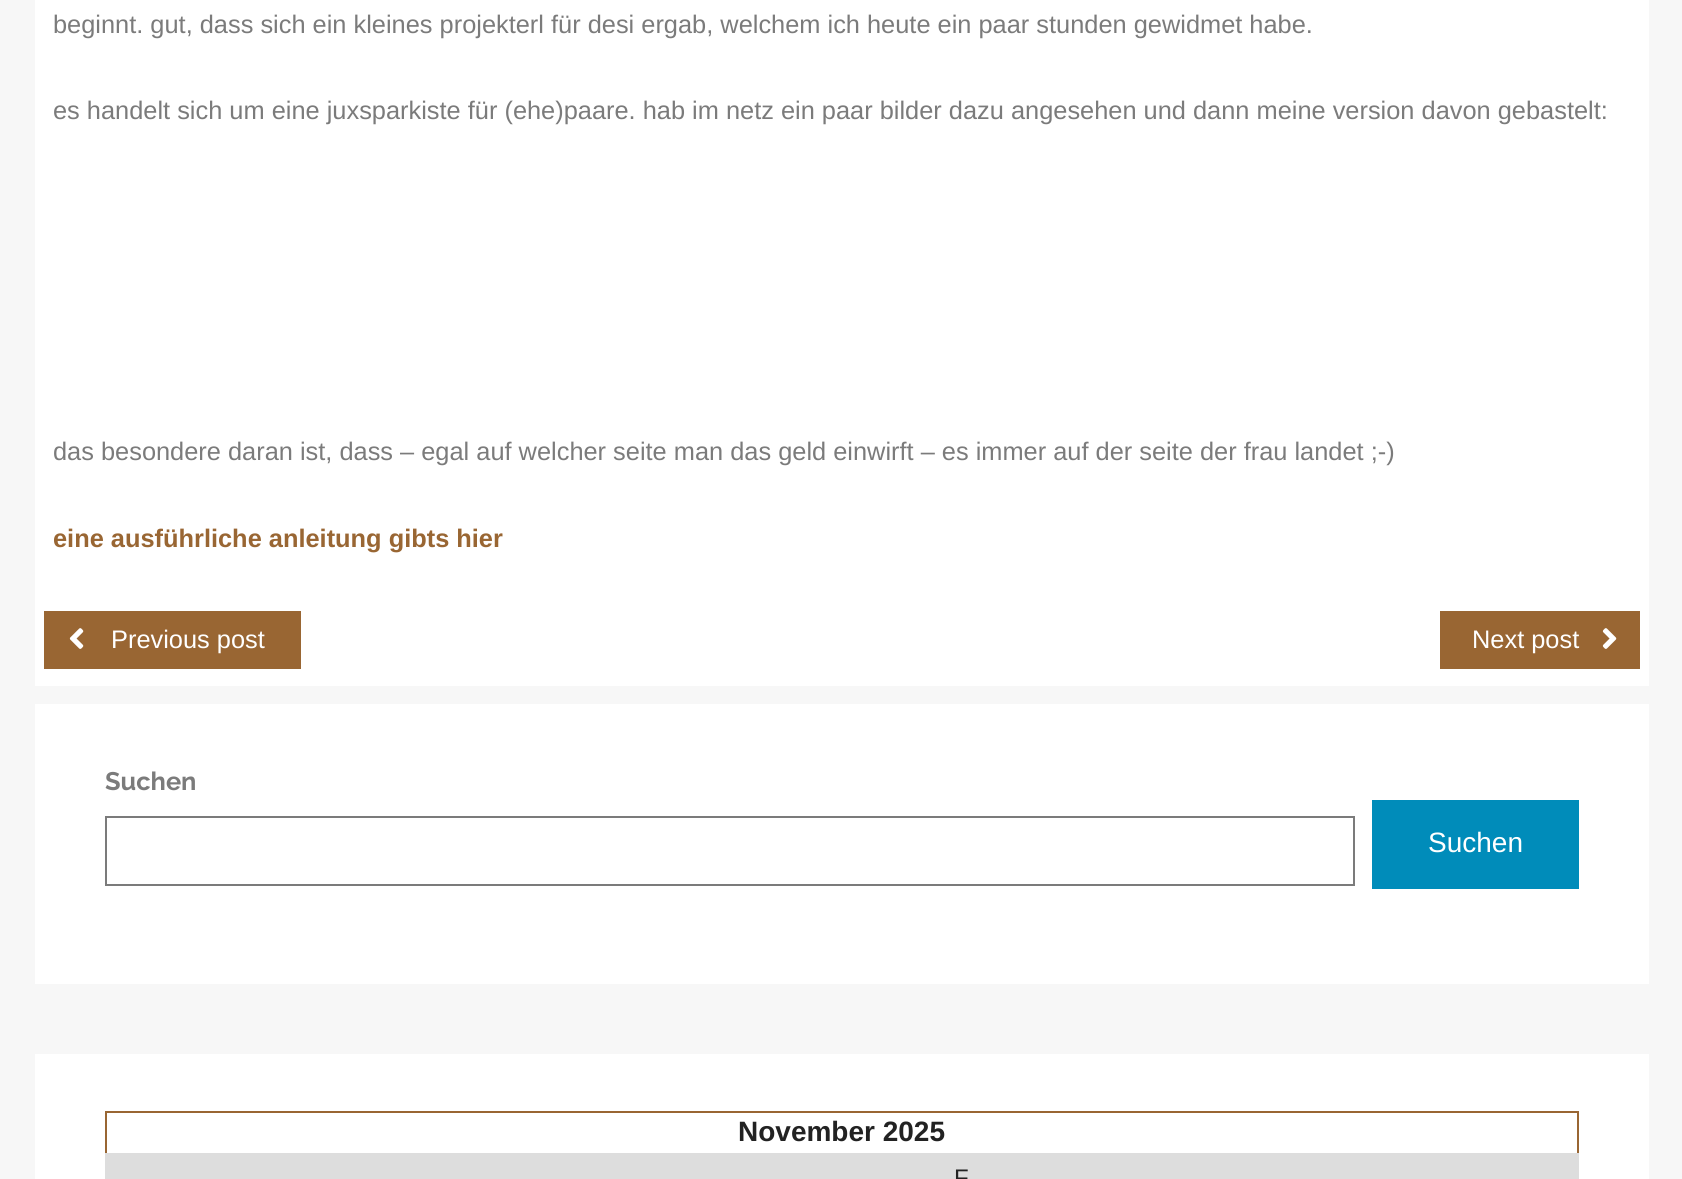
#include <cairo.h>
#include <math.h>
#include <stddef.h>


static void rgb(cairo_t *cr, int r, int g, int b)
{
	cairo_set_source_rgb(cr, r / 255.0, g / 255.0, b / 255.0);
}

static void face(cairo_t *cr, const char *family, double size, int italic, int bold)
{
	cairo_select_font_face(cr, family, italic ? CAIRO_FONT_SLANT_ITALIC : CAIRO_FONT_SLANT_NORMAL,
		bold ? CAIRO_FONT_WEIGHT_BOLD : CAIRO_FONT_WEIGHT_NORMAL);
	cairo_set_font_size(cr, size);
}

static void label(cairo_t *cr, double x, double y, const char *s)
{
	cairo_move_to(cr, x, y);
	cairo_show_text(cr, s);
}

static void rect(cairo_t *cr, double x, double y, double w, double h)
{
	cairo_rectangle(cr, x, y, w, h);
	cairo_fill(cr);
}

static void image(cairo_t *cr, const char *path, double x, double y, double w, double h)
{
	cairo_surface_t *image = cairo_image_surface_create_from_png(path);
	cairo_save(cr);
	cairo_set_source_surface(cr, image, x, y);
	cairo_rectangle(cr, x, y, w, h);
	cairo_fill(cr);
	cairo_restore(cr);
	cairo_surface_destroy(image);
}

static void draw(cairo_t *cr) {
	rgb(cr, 247, 247, 247);
	cairo_paint(cr);
	rgb(cr, 255, 255, 255);
	rect(cr, 35, 0, 1614, 686);
	face(cr, "Liberation Sans", 25.38, 0, 0);
	rgb(cr, 123, 123, 123);
	label(cr, 53, 33, "beginnt. gut, dass sich ein kleines projekterl für desi ergab, welchem ich heute ein paar stunden gewidmet habe.");
	label(cr, 53, 119, "es handelt sich um eine juxsparkiste für (ehe)paare. hab im netz ein paar bilder dazu angesehen und dann meine version davon gebastelt:");
	label(cr, 53, 460, "das besondere daran ist, dass – egal auf welcher seite man das geld einwirft – es immer auf der seite der frau landet ;-)");
	face(cr, "Liberation Sans", 25.38, 0, 1);
	rgb(cr, 153, 102, 51);
	label(cr, 53, 547, "eine ausführliche anleitung gibts hier");
	rect(cr, 44, 611, 257, 58);
	image(cr, "image0.png", 69, 628, 15, 21);
	face(cr, "Liberation Sans", 25.38, 0, 0);
	rgb(cr, 255, 255, 255);
	label(cr, 111, 648, "Previous post");
	rgb(cr, 153, 102, 51);
	rect(cr, 1440, 611, 200, 58);
	rgb(cr, 255, 255, 255);
	label(cr, 1472, 648, "Next post");
	image(cr, "image1.png", 1602, 628, 15, 21);
	rect(cr, 35, 704, 1614, 280);
	face(cr, "Raleway", 25.38, 0, 1);
	rgb(cr, 123, 123, 123);
	label(cr, 105, 790, "Suchen");
	cairo_rectangle(cr, 106, 817, 1248, 68);
	cairo_stroke(cr);
	rgb(cr, 0, 140, 186);
	rect(cr, 1372, 800, 207, 89);
	face(cr, "Liberation Sans", 28, 0, 0);
	rgb(cr, 255, 255, 255);
	label(cr, 1428, 852, "Suchen");
	rect(cr, 35, 1054, 1614, 125);
	rgb(cr, 153, 102, 51);
	rect(cr, 105, 1111, 1474, 2);
	rect(cr, 1577, 1111, 2, 42);
	rect(cr, 105, 1111, 2, 42);
	face(cr, "Liberation Sans", 28, 0, 1);
	rgb(cr, 34, 34, 34);
	label(cr, 738, 1141, "November 2025");
	rgb(cr, 221, 221, 221);
	rect(cr, 107, 1155, 210, 24);
	rect(cr, 105, 1153, 212, 2);
	rect(cr, 105, 1153, 2, 26);
	rect(cr, 317, 1153, 1050, 26);
	rect(cr, 1367, 1155, 210, 24);
	rect(cr, 1367, 1153, 212, 2);
	rect(cr, 1577, 1153, 2, 26);
	face(cr, "Liberation Sans", 24, 0, 0);
	rgb(cr, 34, 34, 34);
	label(cr, 954, 1186, "F");
}

int main(void) {
	cairo_surface_t *surface = cairo_image_surface_create(CAIRO_FORMAT_RGB24, 1682, 1179);
	cairo_t *cr = cairo_create(surface);
	cairo_font_options_t *options = cairo_font_options_create();
	cairo_font_options_set_hint_metrics(options, CAIRO_HINT_METRICS_OFF);
	cairo_font_options_set_hint_style(options, CAIRO_HINT_STYLE_NONE);
	cairo_set_font_options(cr, options);
	cairo_set_miter_limit(cr, 4);
	draw(cr);
	cairo_surface_write_to_png(surface, "render.png");
	cairo_font_options_destroy(options);
	cairo_destroy(cr);
	cairo_surface_destroy(surface);
	return 0;
}
